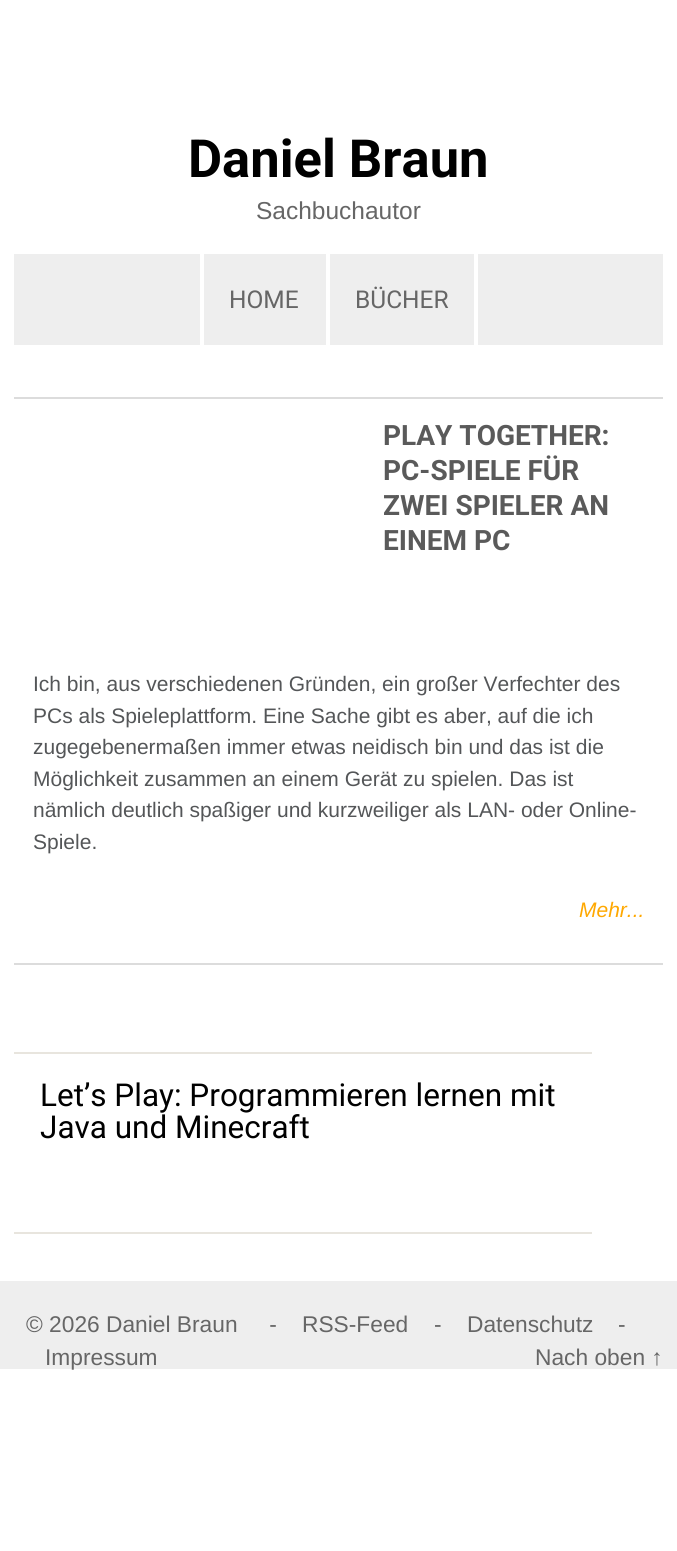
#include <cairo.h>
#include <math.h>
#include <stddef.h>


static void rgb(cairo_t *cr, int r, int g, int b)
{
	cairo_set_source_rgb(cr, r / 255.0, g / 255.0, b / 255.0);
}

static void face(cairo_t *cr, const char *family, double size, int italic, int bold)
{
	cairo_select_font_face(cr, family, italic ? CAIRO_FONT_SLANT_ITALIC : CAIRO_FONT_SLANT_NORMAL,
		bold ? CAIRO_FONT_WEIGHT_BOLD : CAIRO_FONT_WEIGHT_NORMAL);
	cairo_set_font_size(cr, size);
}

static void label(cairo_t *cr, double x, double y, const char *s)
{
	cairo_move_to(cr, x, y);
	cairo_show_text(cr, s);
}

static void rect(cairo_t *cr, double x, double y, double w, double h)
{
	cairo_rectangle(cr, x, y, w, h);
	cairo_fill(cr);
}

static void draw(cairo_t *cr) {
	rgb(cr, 255, 255, 255);
	cairo_paint(cr);
	face(cr, "Roboto", 52.5, 0, 1);
	rgb(cr, 0, 0, 0);
	label(cr, 188, 177, "Daniel Braun");
	face(cr, "Liberation Sans", 24.5, 0, 0);
	rgb(cr, 102, 102, 102);
	label(cr, 256, 219, "Sachbuchautor");
	rgb(cr, 238, 238, 238);
	rect(cr, 14, 254, 649, 91);
	rgb(cr, 255, 255, 255);
	rect(cr, 200, 254, 4, 91);
	rect(cr, 326, 254, 4, 91);
	face(cr, "Roboto", 24.5, 0, 0);
	rgb(cr, 102, 102, 102);
	label(cr, 229, 308, "HOME");
	rgb(cr, 255, 255, 255);
	rect(cr, 474, 254, 4, 91);
	rgb(cr, 102, 102, 102);
	label(cr, 355, 308, "BÜCHER");
	rgb(cr, 220, 220, 220);
	rect(cr, 14, 397, 649, 2);
	rect(cr, 14, 963, 649, 2);
	face(cr, "Roboto", 28, 0, 1);
	rgb(cr, 90, 90, 90);
	label(cr, 383, 445, "PLAY TOGETHER:");
	label(cr, 383, 480, "PC-SPIELE FÜR");
	label(cr, 383, 515, "ZWEI SPIELER AN");
	label(cr, 383, 550, "EINEM PC");
	face(cr, "Liberation Sans", 21, 0, 0);
	rgb(cr, 84, 86, 88);
	label(cr, 33, 691, "Ich bin, aus verschiedenen Gründen, ein großer Verfechter des");
	label(cr, 33, 723, "PCs als Spieleplattform. Eine Sache gibt es aber, auf die ich");
	label(cr, 33, 754, "zugegebenermaßen immer etwas neidisch bin und das ist die");
	label(cr, 33, 786, "Möglichkeit zusammen an einem Gerät zu spielen. Das ist");
	label(cr, 33, 817, "nämlich deutlich spaßiger und kurzweiliger als LAN- oder Online-");
	label(cr, 33, 849, "Spiele.");
	face(cr, "Liberation Sans", 21, 1, 0);
	rgb(cr, 255, 168, 0);
	label(cr, 579, 917, "Mehr...");
	rgb(cr, 232, 229, 222);
	rect(cr, 14, 1052, 578, 2);
	rect(cr, 14, 1232, 578, 2);
	face(cr, "Roboto", 31.5, 0, 0);
	rgb(cr, 0, 0, 0);
	label(cr, 40, 1106, "Let’s Play: Programmieren lernen mit");
	label(cr, 40, 1138, "Java und Minecraft");
	rgb(cr, 238, 238, 238);
	rect(cr, 0, 1281, 677, 88);
	face(cr, "Liberation Sans", 22.75, 0, 0);
	rgb(cr, 102, 102, 102);
	label(cr, 26, 1332, "© 2026 Daniel Braun     -");
	label(cr, 302, 1332, "RSS-Feed");
	label(cr, 434, 1332, "-");
	label(cr, 467, 1332, "Datenschutz");
	label(cr, 618, 1332, "-");
	label(cr, 45, 1365, "Impressum");
	label(cr, 535, 1365, "Nach oben ↑");
}

int main(void) {
	cairo_surface_t *surface = cairo_image_surface_create(CAIRO_FORMAT_RGB24, 677, 1551);
	cairo_t *cr = cairo_create(surface);
	cairo_font_options_t *options = cairo_font_options_create();
	cairo_font_options_set_hint_metrics(options, CAIRO_HINT_METRICS_OFF);
	cairo_font_options_set_hint_style(options, CAIRO_HINT_STYLE_NONE);
	cairo_set_font_options(cr, options);
	cairo_set_miter_limit(cr, 4);
	draw(cr);
	cairo_surface_write_to_png(surface, "render.png");
	cairo_font_options_destroy(options);
	cairo_destroy(cr);
	cairo_surface_destroy(surface);
	return 0;
}
